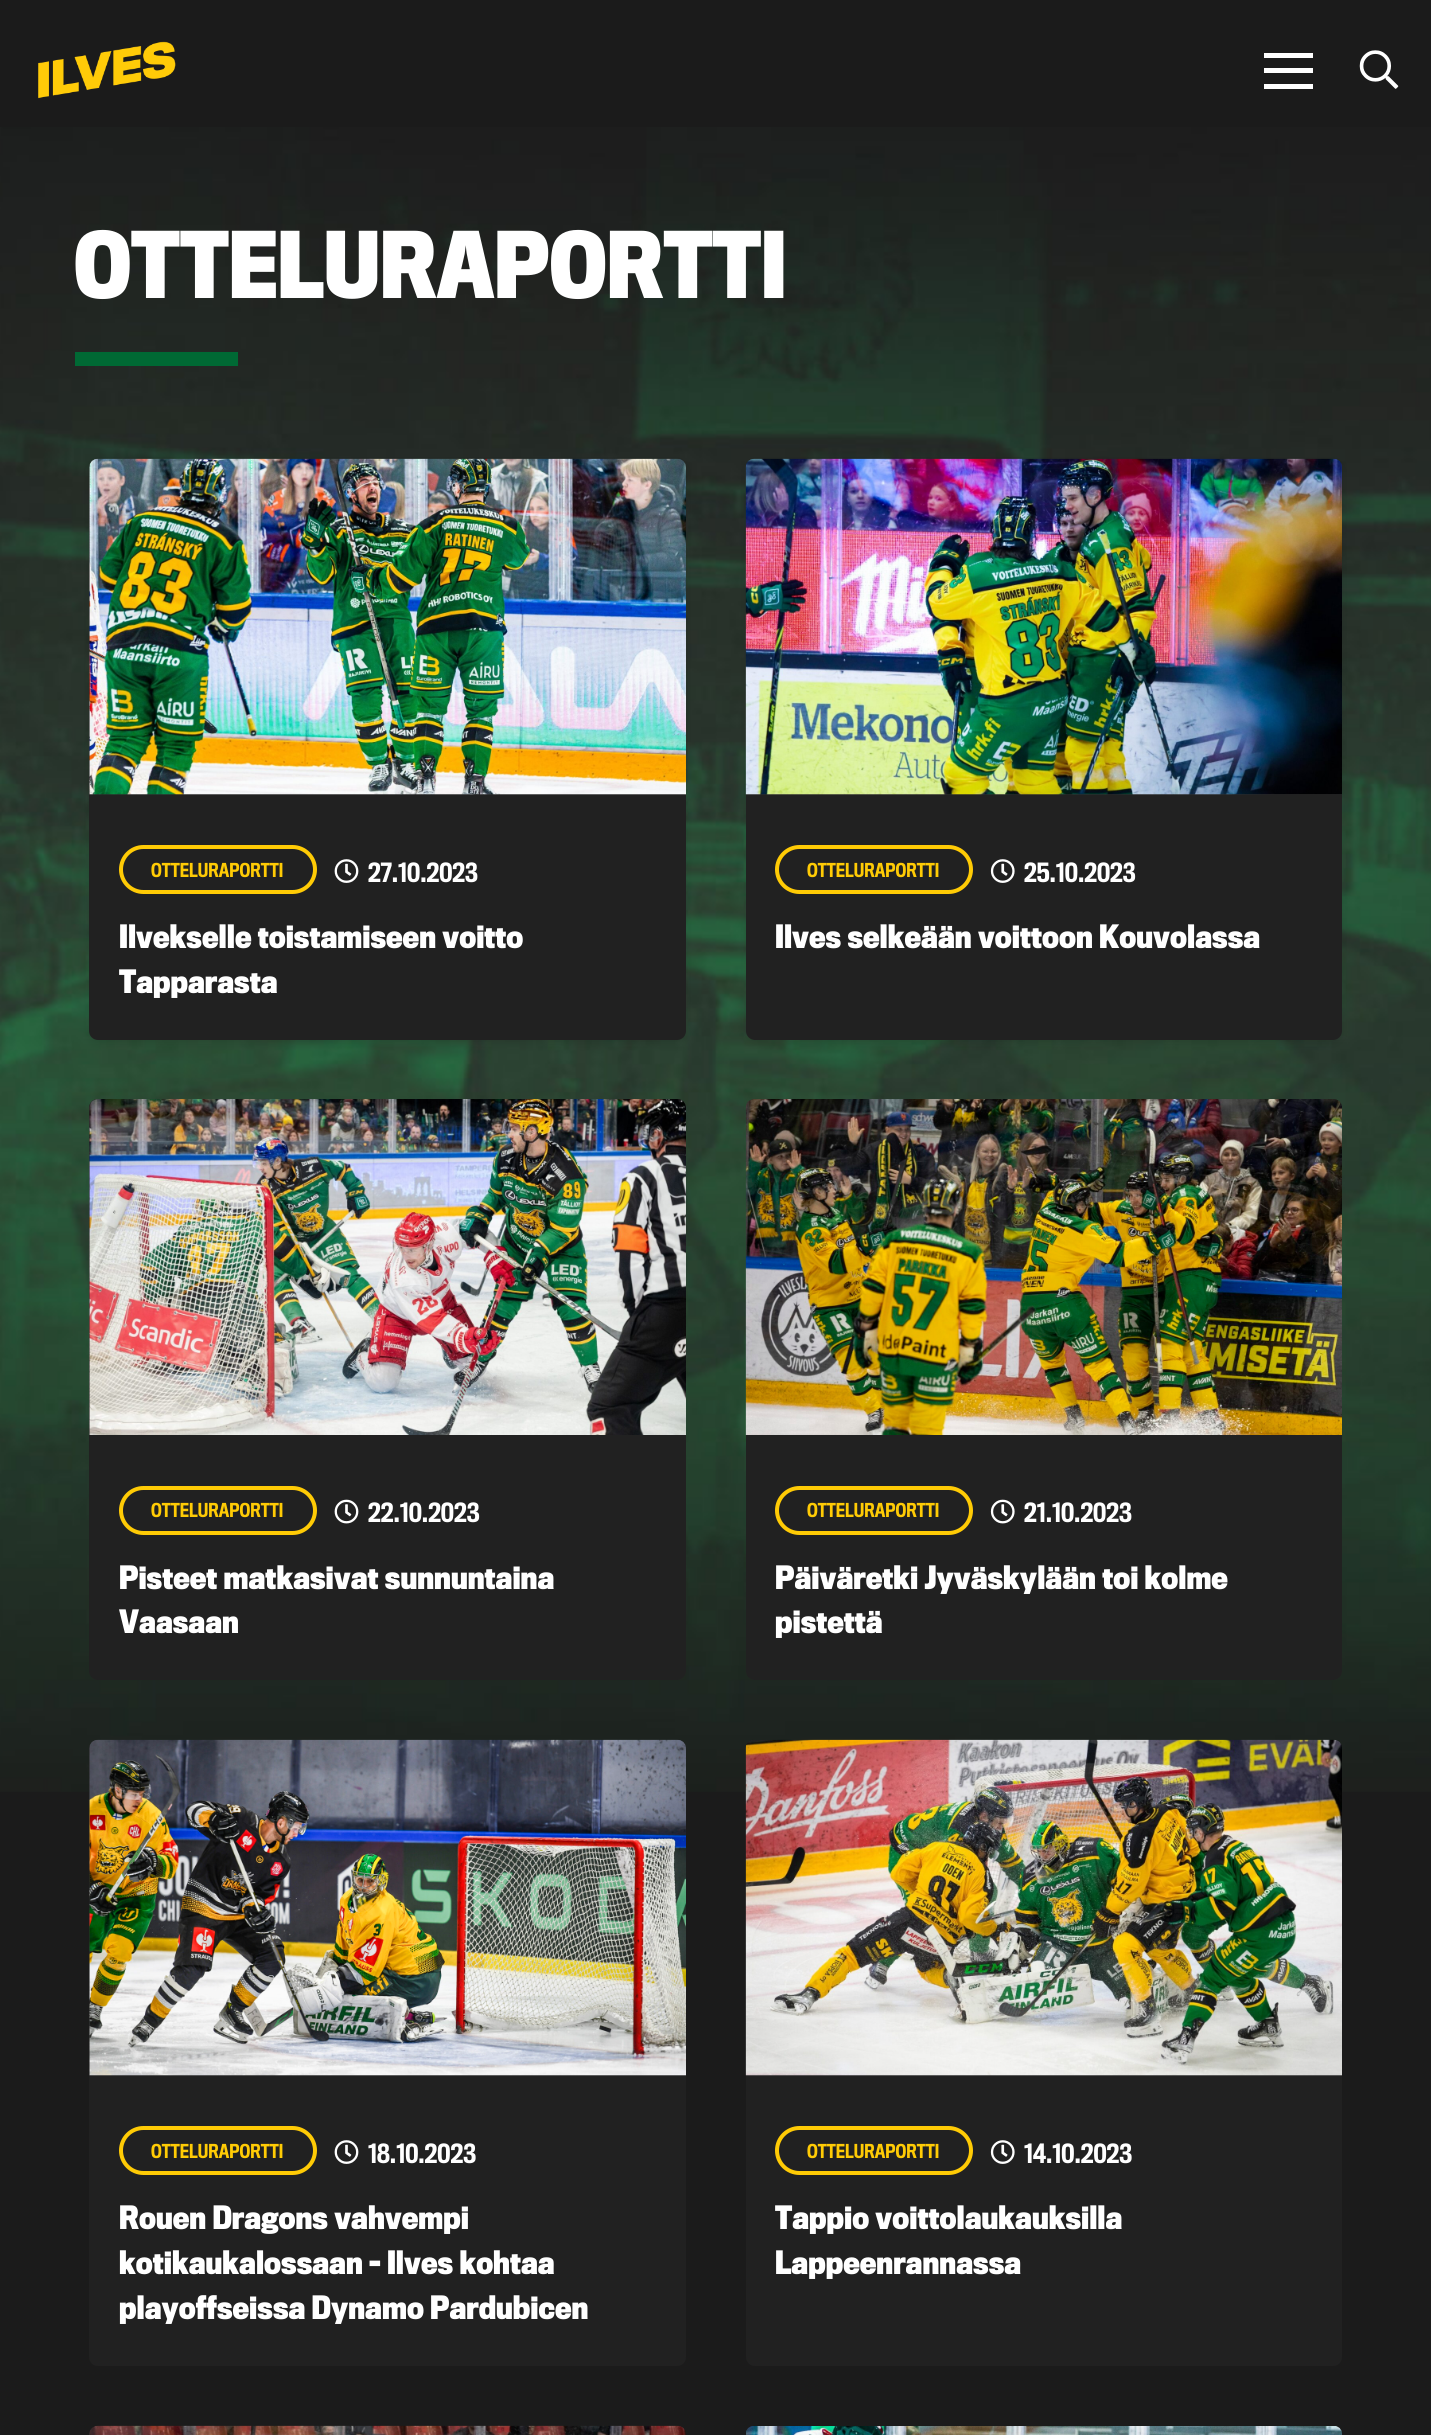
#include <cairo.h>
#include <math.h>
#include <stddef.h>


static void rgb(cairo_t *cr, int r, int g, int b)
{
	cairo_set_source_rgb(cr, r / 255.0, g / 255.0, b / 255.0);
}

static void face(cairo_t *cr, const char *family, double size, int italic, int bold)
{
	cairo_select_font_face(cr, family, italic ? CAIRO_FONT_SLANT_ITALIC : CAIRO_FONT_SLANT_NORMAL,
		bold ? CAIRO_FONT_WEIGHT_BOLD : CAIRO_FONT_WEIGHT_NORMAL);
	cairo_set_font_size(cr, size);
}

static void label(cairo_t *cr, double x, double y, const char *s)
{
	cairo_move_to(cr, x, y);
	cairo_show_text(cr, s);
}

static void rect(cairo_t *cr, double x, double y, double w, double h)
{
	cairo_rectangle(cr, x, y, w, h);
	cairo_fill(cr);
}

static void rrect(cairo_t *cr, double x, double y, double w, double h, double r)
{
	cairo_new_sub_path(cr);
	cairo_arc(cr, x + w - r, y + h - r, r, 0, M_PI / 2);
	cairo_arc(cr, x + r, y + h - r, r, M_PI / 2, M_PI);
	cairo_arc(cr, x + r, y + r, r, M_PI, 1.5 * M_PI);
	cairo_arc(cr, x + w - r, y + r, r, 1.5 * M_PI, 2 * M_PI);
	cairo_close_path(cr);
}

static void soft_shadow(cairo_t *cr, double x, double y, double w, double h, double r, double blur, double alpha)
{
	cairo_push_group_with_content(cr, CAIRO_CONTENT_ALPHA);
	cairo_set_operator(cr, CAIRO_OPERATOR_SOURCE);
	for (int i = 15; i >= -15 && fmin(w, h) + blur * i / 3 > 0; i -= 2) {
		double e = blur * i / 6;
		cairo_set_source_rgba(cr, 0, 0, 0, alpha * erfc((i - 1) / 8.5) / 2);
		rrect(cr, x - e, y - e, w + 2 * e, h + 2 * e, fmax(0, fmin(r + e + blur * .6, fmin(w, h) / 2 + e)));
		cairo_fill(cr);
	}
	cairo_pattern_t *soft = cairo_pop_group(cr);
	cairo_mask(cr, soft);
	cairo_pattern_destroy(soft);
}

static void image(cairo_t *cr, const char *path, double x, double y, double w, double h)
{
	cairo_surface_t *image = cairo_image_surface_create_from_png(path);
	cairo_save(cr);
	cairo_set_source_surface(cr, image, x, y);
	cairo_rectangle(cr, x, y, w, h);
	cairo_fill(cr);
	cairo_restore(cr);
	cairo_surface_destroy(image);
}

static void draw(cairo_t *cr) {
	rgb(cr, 27, 27, 27);
	cairo_paint(cr);
	image(cr, "image0.png", 38, 41, 138, 58);
	rgb(cr, 255, 255, 255);
	rect(cr, 1264, 68, 49, 5);
	rect(cr, 1264, 53, 49, 5);
	rect(cr, 1264, 84, 49, 5);
	image(cr, "image1.png", 1359, 50, 40, 39);
	image(cr, "image2.png", 0, 127, 1431, 1665);
	face(cr, "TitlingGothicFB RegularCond", 84.6, 0, 1);
	label(cr, 74, 298, "OTTELURAPORTTI");
	rgb(cr, 0, 105, 52);
	rect(cr, 75, 352, 163, 14);
	rgb(cr, 0, 0, 0);
	soft_shadow(cr, 89, 462, 597, 581, 9, 4.5, 0.1);
	rgb(cr, 33, 33, 33);
	rrect(cr, 89, 459, 597, 581, 9);
	cairo_fill(cr);
	rgb(cr, 43, 43, 43);
	cairo_new_path(cr);
	cairo_move_to(cr, 98, 459);
	cairo_line_to(cr, 677, 459);
	cairo_curve_to(cr, 682, 459, 686, 463, 686, 468);
	cairo_line_to(cr, 686, 795);
	cairo_line_to(cr, 89, 795);
	cairo_line_to(cr, 89, 468);
	cairo_curve_to(cr, 89, 463, 93, 459, 98, 459);
	cairo_close_path(cr);
	cairo_fill(cr);
	image(cr, "image3.png", 89, 458, 597, 337);
	rrect(cr, 121, 847, 194, 45, 22.5);
	rgb(cr, 255, 203, 5);
	cairo_set_line_width(cr, 4);
	cairo_stroke(cr);
	face(cr, "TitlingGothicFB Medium", 17.75, 0, 0);
	label(cr, 151, 877, "OTTELURAPORTTI");
	image(cr, "image4.png", 334, 859, 25, 24);
	face(cr, "TitlingGothicFB Medium", 24.5, 0, 0);
	rgb(cr, 255, 255, 255);
	label(cr, 368, 882, "27.10.2023");
	face(cr, "TitlingGothicFB RegularCond", 29.75, 0, 1);
	label(cr, 119, 948, "Ilvekselle toistamiseen voitto");
	label(cr, 119, 993, "Tapparasta");
	rgb(cr, 0, 0, 0);
	soft_shadow(cr, 746, 462, 596, 581, 9, 4.5, 0.1);
	rgb(cr, 33, 33, 33);
	rrect(cr, 746, 459, 596, 581, 9);
	cairo_fill(cr);
	rgb(cr, 43, 43, 43);
	cairo_new_path(cr);
	cairo_move_to(cr, 755, 459);
	cairo_line_to(cr, 1333, 459);
	cairo_curve_to(cr, 1338, 459, 1342, 463, 1342, 468);
	cairo_line_to(cr, 1342, 795);
	cairo_line_to(cr, 746, 795);
	cairo_line_to(cr, 746, 468);
	cairo_curve_to(cr, 746, 463, 750, 459, 755, 459);
	cairo_close_path(cr);
	cairo_fill(cr);
	image(cr, "image5.png", 745, 458, 597, 337);
	rrect(cr, 777, 847, 194, 45, 22.5);
	rgb(cr, 255, 203, 5);
	cairo_stroke(cr);
	face(cr, "TitlingGothicFB Medium", 17.75, 0, 0);
	label(cr, 807, 877, "OTTELURAPORTTI");
	image(cr, "image6.png", 990, 859, 25, 24);
	face(cr, "TitlingGothicFB Medium", 24.5, 0, 0);
	rgb(cr, 255, 255, 255);
	label(cr, 1024, 882, "25.10.2023");
	face(cr, "TitlingGothicFB RegularCond", 29.75, 0, 1);
	label(cr, 775, 948, "Ilves selkeään voittoon Kouvolassa");
	rgb(cr, 33, 33, 33);
	rrect(cr, 89, 1099, 597, 581, 9);
	cairo_fill(cr);
	rgb(cr, 43, 43, 43);
	cairo_new_path(cr);
	cairo_move_to(cr, 98, 1099);
	cairo_line_to(cr, 677, 1099);
	cairo_curve_to(cr, 682, 1099, 686, 1103, 686, 1108);
	cairo_line_to(cr, 686, 1435);
	cairo_line_to(cr, 89, 1435);
	cairo_line_to(cr, 89, 1108);
	cairo_curve_to(cr, 89, 1103, 93, 1099, 98, 1099);
	cairo_close_path(cr);
	cairo_fill(cr);
	image(cr, "image7.png", 89, 1099, 597, 336);
	rrect(cr, 121, 1488, 194, 45, 22.5);
	rgb(cr, 255, 203, 5);
	cairo_stroke(cr);
	face(cr, "TitlingGothicFB Medium", 17.75, 0, 0);
	label(cr, 151, 1517, "OTTELURAPORTTI");
	image(cr, "image8.png", 334, 1499, 25, 25);
	face(cr, "TitlingGothicFB Medium", 24.5, 0, 0);
	rgb(cr, 255, 255, 255);
	label(cr, 368, 1522, "22.10.2023");
	face(cr, "TitlingGothicFB RegularCond", 29.75, 0, 1);
	label(cr, 119, 1589, "Pisteet matkasivat sunnuntaina");
	label(cr, 119, 1633, "Vaasaan");
	rgb(cr, 33, 33, 33);
	rrect(cr, 746, 1099, 596, 581, 9);
	cairo_fill(cr);
	image(cr, "image9.png", 745, 1099, 597, 336);
	rrect(cr, 777, 1488, 194, 45, 22.5);
	rgb(cr, 255, 203, 5);
	cairo_stroke(cr);
	face(cr, "TitlingGothicFB Medium", 17.75, 0, 0);
	label(cr, 807, 1517, "OTTELURAPORTTI");
	image(cr, "image10.png", 990, 1499, 25, 25);
	face(cr, "TitlingGothicFB Medium", 24.5, 0, 0);
	rgb(cr, 255, 255, 255);
	label(cr, 1024, 1522, "21.10.2023");
	face(cr, "TitlingGothicFB RegularCond", 29.75, 0, 1);
	label(cr, 775, 1589, "Päiväretki Jyväskylään toi kolme");
	label(cr, 775, 1633, "pistettä");
	rgb(cr, 33, 33, 33);
	rrect(cr, 89, 1740, 597, 626, 9);
	cairo_fill(cr);
	rgb(cr, 43, 43, 43);
	cairo_new_path(cr);
	cairo_move_to(cr, 98, 1740);
	cairo_line_to(cr, 677, 1740);
	cairo_curve_to(cr, 682, 1740, 686, 1744, 686, 1749);
	cairo_line_to(cr, 686, 2076);
	cairo_line_to(cr, 89, 2076);
	cairo_line_to(cr, 89, 1749);
	cairo_curve_to(cr, 89, 1744, 93, 1740, 98, 1740);
	cairo_close_path(cr);
	cairo_fill(cr);
	image(cr, "image11.png", 89, 1739, 597, 337);
	rrect(cr, 121, 2128, 194, 45, 22.5);
	rgb(cr, 255, 203, 5);
	cairo_stroke(cr);
	face(cr, "TitlingGothicFB Medium", 17.75, 0, 0);
	label(cr, 151, 2158, "OTTELURAPORTTI");
	image(cr, "image4.png", 334, 2140, 25, 24);
	face(cr, "TitlingGothicFB Medium", 24.5, 0, 0);
	rgb(cr, 255, 255, 255);
	label(cr, 368, 2163, "18.10.2023");
	face(cr, "TitlingGothicFB RegularCond", 29.75, 0, 1);
	label(cr, 119, 2229, "Rouen Dragons vahvempi");
	label(cr, 119, 2274, "kotikaukalossaan – Ilves kohtaa");
	label(cr, 119, 2319, "playoffseissa Dynamo Pardubicen");
	rgb(cr, 33, 33, 33);
	rrect(cr, 746, 1740, 596, 626, 9);
	cairo_fill(cr);
	rgb(cr, 43, 43, 43);
	cairo_new_path(cr);
	cairo_move_to(cr, 755, 1740);
	cairo_line_to(cr, 1333, 1740);
	cairo_curve_to(cr, 1338, 1740, 1342, 1744, 1342, 1749);
	cairo_line_to(cr, 1342, 2076);
	cairo_line_to(cr, 746, 2076);
	cairo_line_to(cr, 746, 1749);
	cairo_curve_to(cr, 746, 1744, 750, 1740, 755, 1740);
	cairo_close_path(cr);
	cairo_fill(cr);
	image(cr, "image12.png", 745, 1739, 597, 337);
	rrect(cr, 777, 2128, 194, 45, 22.5);
	rgb(cr, 255, 203, 5);
	cairo_stroke(cr);
	face(cr, "TitlingGothicFB Medium", 17.75, 0, 0);
	label(cr, 807, 2158, "OTTELURAPORTTI");
	image(cr, "image6.png", 990, 2140, 25, 24);
	face(cr, "TitlingGothicFB Medium", 24.5, 0, 0);
	rgb(cr, 255, 255, 255);
	label(cr, 1024, 2163, "14.10.2023");
	face(cr, "TitlingGothicFB RegularCond", 29.75, 0, 1);
	label(cr, 775, 2229, "Tappio voittolaukauksilla");
	label(cr, 775, 2274, "Lappeenrannassa");
	rgb(cr, 43, 43, 43);
	cairo_new_path(cr);
	cairo_move_to(cr, 98, 2426);
	cairo_line_to(cr, 677, 2426);
	cairo_curve_to(cr, 682, 2426, 686, 2430, 686, 2435);
	cairo_line_to(cr, 686, 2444);
	cairo_line_to(cr, 89, 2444);
	cairo_line_to(cr, 89, 2435);
	cairo_curve_to(cr, 89, 2430, 93, 2426, 98, 2426);
	cairo_close_path(cr);
	cairo_fill(cr);
	image(cr, "image13.png", 89, 2425, 597, 10);
	image(cr, "image14.png", 746, 2426, 596, 9);
}

int main(void) {
	cairo_surface_t *surface = cairo_image_surface_create(CAIRO_FORMAT_RGB24, 1431, 2435);
	cairo_t *cr = cairo_create(surface);
	cairo_font_options_t *options = cairo_font_options_create();
	cairo_font_options_set_hint_metrics(options, CAIRO_HINT_METRICS_OFF);
	cairo_font_options_set_hint_style(options, CAIRO_HINT_STYLE_NONE);
	cairo_set_font_options(cr, options);
	cairo_set_miter_limit(cr, 4);
	draw(cr);
	cairo_surface_write_to_png(surface, "render.png");
	cairo_font_options_destroy(options);
	cairo_destroy(cr);
	cairo_surface_destroy(surface);
	return 0;
}
